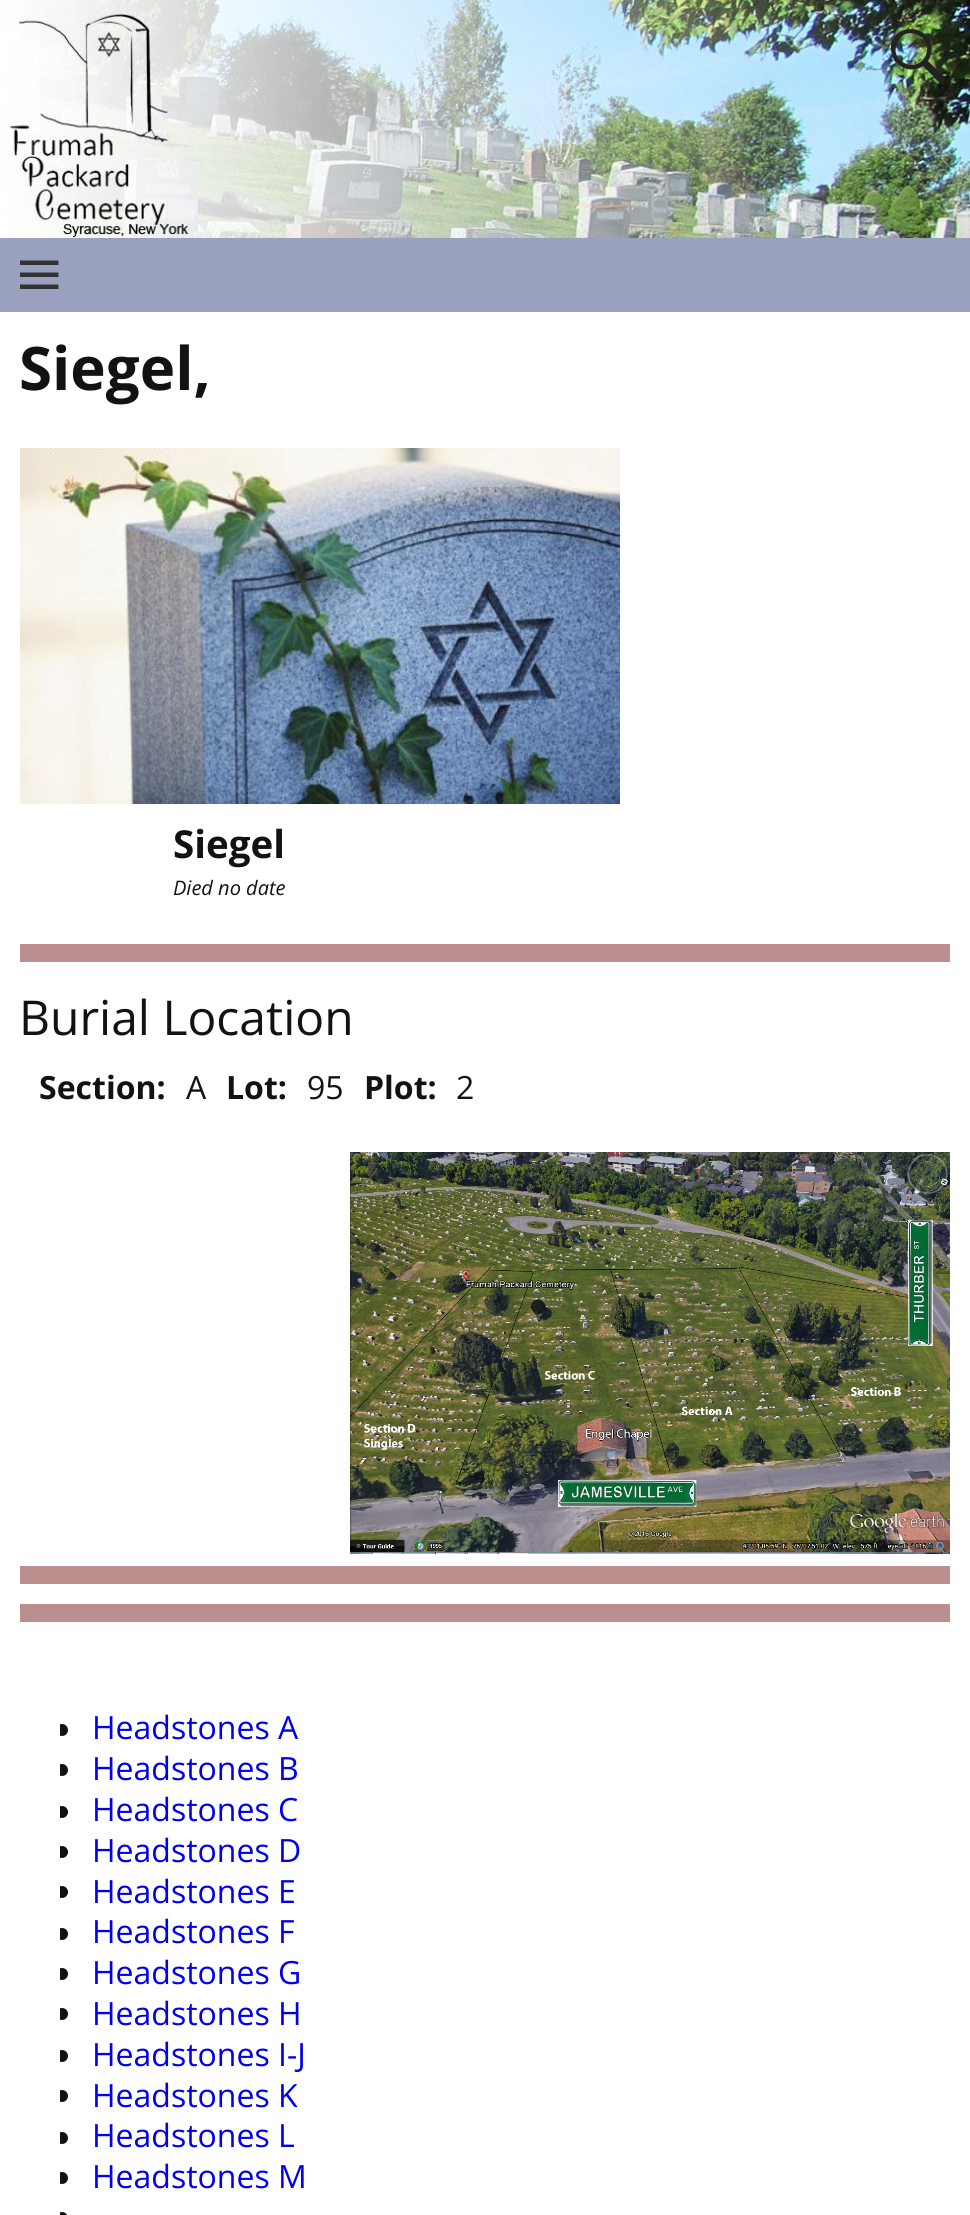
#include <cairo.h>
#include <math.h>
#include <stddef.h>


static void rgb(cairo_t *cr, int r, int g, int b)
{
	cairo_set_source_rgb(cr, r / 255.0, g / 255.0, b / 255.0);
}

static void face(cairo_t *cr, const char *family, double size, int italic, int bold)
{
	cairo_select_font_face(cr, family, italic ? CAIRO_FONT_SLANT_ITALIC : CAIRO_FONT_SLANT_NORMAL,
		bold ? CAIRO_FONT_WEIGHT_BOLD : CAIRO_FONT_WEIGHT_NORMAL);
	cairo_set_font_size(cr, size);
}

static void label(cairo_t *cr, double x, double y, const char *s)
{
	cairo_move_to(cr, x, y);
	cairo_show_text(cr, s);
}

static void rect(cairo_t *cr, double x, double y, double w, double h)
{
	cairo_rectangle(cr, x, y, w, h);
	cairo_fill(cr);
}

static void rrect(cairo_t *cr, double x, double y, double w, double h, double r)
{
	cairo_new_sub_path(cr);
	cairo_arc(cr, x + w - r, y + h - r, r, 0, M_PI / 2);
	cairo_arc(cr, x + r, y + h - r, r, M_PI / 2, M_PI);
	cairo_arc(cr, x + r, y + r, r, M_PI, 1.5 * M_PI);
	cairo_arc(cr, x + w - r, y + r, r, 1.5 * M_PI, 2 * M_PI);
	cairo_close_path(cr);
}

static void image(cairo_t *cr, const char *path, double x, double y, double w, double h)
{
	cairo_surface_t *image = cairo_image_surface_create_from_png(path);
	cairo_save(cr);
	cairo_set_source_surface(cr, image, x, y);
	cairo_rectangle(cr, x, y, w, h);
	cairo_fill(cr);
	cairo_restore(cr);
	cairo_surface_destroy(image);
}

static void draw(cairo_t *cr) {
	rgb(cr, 255, 255, 255);
	cairo_paint(cr);
	image(cr, "image0.png", 0, 0, 970, 238);
	rgb(cr, 34, 34, 34);
	cairo_new_path(cr);
	cairo_move_to(cr, 945, 78);
	cairo_line_to(cr, 940, 83);
	cairo_line_to(cr, 923, 66);
	cairo_curve_to(cr, 913, 73, 899, 69, 893, 58);
	cairo_curve_to(cr, 891, 54, 891, 50, 891, 45);
	cairo_curve_to(cr, 895, 24, 925, 24, 931, 44);
	cairo_curve_to(cr, 932, 50, 931, 56, 928, 61);
	cairo_close_path(cr);
	cairo_move_to(cr, 898, 41);
	cairo_curve_to(cr, 887, 59, 914, 75, 925, 57);
	cairo_curve_to(cr, 935, 39, 908, 23, 898, 41);
	cairo_close_path(cr);
	cairo_fill(cr);
	rgb(cr, 154, 161, 191);
	rect(cr, 0, 238, 970, 74);
	rgb(cr, 51, 51, 51);
	cairo_new_path(cr);
	cairo_move_to(cr, 20, 289);
	cairo_line_to(cr, 20, 284.5);
	cairo_line_to(cr, 58.5, 284.5);
	cairo_line_to(cr, 58.5, 289);
	cairo_close_path(cr);
	cairo_move_to(cr, 20, 260.5);
	cairo_line_to(cr, 58.5, 260.5);
	cairo_line_to(cr, 58.5, 265);
	cairo_line_to(cr, 20, 265);
	cairo_close_path(cr);
	cairo_move_to(cr, 20, 277);
	cairo_line_to(cr, 20, 272.5);
	cairo_line_to(cr, 58.5, 272.5);
	cairo_line_to(cr, 58.5, 277);
	cairo_close_path(cr);
	cairo_fill(cr);
	face(cr, "Open Sans", 60, 0, 1);
	rgb(cr, 18, 18, 18);
	label(cr, 19, 390, "Siegel,");
	image(cr, "image1.png", 20, 448, 600, 356);
	face(cr, "Open Sans", 38.5, 0, 1);
	label(cr, 173, 858, "Siegel");
	face(cr, "Open Sans", 20, 1, 0);
	label(cr, 173, 895, "Died no date");
	rgb(cr, 188, 143, 143);
	rect(cr, 20, 944, 930, 18);
	face(cr, "Open Sans", 48, 0, 0);
	rgb(cr, 18, 18, 18);
	label(cr, 19, 1035, "Burial Location");
	face(cr, "Open Sans", 32, 0, 1);
	label(cr, 39, 1099, "Section:");
	face(cr, "Open Sans", 32, 0, 0);
	label(cr, 186, 1099, "A");
	face(cr, "Open Sans", 32, 0, 1);
	label(cr, 226, 1099, "Lot:");
	face(cr, "Open Sans", 32, 0, 0);
	label(cr, 307, 1099, "95");
	face(cr, "Open Sans", 32, 0, 1);
	label(cr, 364, 1099, "Plot:");
	face(cr, "Open Sans", 32, 0, 0);
	label(cr, 456, 1099, "2");
	image(cr, "image2.png", 350, 1152, 600, 402);
	rgb(cr, 188, 143, 143);
	rect(cr, 20, 1566, 930, 18);
	rect(cr, 20, 1604, 930, 18);
	cairo_save(cr);
	cairo_rectangle(cr, 60, 1708, 894, 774);
	cairo_clip(cr);
	rgb(cr, 18, 18, 18);
	cairo_arc(cr, 62, 1730, 6, 0, 2 * M_PI);
	cairo_fill(cr);
	cairo_restore(cr);
	rgb(cr, 0, 0, 238);
	label(cr, 92, 1739, "Headstones A");
	cairo_save(cr);
	cairo_rectangle(cr, 60, 1708, 894, 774);
	cairo_clip(cr);
	rgb(cr, 18, 18, 18);
	cairo_arc(cr, 62, 1770, 6, 0, 2 * M_PI);
	cairo_fill(cr);
	cairo_restore(cr);
	label(cr, 92, 1780, "Headstones B");
	cairo_save(cr);
	cairo_rectangle(cr, 60, 1708, 894, 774);
	cairo_clip(cr);
	rgb(cr, 18, 18, 18);
	cairo_arc(cr, 62, 1812, 6, 0, 2 * M_PI);
	cairo_fill(cr);
	cairo_restore(cr);
	label(cr, 92, 1821, "Headstones C");
	cairo_save(cr);
	cairo_rectangle(cr, 60, 1708, 894, 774);
	cairo_clip(cr);
	rgb(cr, 18, 18, 18);
	cairo_arc(cr, 62, 1852, 6, 0, 2 * M_PI);
	cairo_fill(cr);
	cairo_restore(cr);
	label(cr, 92, 1862, "Headstones D");
	cairo_save(cr);
	cairo_rectangle(cr, 60, 1708, 894, 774);
	cairo_clip(cr);
	rgb(cr, 18, 18, 18);
	cairo_arc(cr, 62, 1892, 6, 0, 2 * M_PI);
	cairo_fill(cr);
	cairo_restore(cr);
	label(cr, 92, 1903, "Headstones E");
	cairo_save(cr);
	cairo_rectangle(cr, 60, 1708, 894, 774);
	cairo_clip(cr);
	rgb(cr, 18, 18, 18);
	cairo_arc(cr, 62, 1934, 6, 0, 2 * M_PI);
	cairo_fill(cr);
	cairo_restore(cr);
	label(cr, 92, 1943, "Headstones F");
	cairo_save(cr);
	cairo_rectangle(cr, 60, 1708, 894, 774);
	cairo_clip(cr);
	rgb(cr, 18, 18, 18);
	cairo_arc(cr, 62, 1974, 6, 0, 2 * M_PI);
	cairo_fill(cr);
	cairo_restore(cr);
	label(cr, 92, 1984, "Headstones G");
	cairo_save(cr);
	cairo_rectangle(cr, 60, 1708, 894, 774);
	cairo_clip(cr);
	rgb(cr, 18, 18, 18);
	cairo_arc(cr, 62, 2014, 6, 0, 2 * M_PI);
	cairo_fill(cr);
	cairo_restore(cr);
	label(cr, 92, 2025, "Headstones H");
	cairo_save(cr);
	cairo_rectangle(cr, 60, 1708, 894, 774);
	cairo_clip(cr);
	rgb(cr, 18, 18, 18);
	cairo_arc(cr, 62, 2056, 6, 0, 2 * M_PI);
	cairo_fill(cr);
	cairo_restore(cr);
	label(cr, 92, 2066, "Headstones I-J");
	cairo_save(cr);
	cairo_rectangle(cr, 60, 1708, 894, 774);
	cairo_clip(cr);
	rgb(cr, 18, 18, 18);
	cairo_arc(cr, 62, 2096, 6, 0, 2 * M_PI);
	cairo_fill(cr);
	cairo_restore(cr);
	label(cr, 92, 2107, "Headstones K");
	cairo_save(cr);
	cairo_rectangle(cr, 60, 1708, 894, 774);
	cairo_clip(cr);
	rgb(cr, 18, 18, 18);
	cairo_arc(cr, 62, 2138, 6, 0, 2 * M_PI);
	cairo_fill(cr);
	cairo_restore(cr);
	label(cr, 92, 2147, "Headstones L");
	cairo_save(cr);
	cairo_rectangle(cr, 60, 1708, 894, 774);
	cairo_clip(cr);
	rgb(cr, 18, 18, 18);
	cairo_arc(cr, 62, 2178, 6, 0, 2 * M_PI);
	cairo_fill(cr);
	cairo_restore(cr);
	label(cr, 92, 2188, "Headstones M");
	cairo_save(cr);
	cairo_rectangle(cr, 60, 1708, 894, 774);
	cairo_clip(cr);
	rgb(cr, 18, 18, 18);
	rrect(cr, 56, 2212, 12, 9, 6);
	cairo_fill(cr);
	cairo_restore(cr);
}

int main(void) {
	cairo_surface_t *surface = cairo_image_surface_create(CAIRO_FORMAT_RGB24, 970, 2215);
	cairo_t *cr = cairo_create(surface);
	cairo_font_options_t *options = cairo_font_options_create();
	cairo_font_options_set_hint_metrics(options, CAIRO_HINT_METRICS_OFF);
	cairo_font_options_set_hint_style(options, CAIRO_HINT_STYLE_NONE);
	cairo_set_font_options(cr, options);
	cairo_set_miter_limit(cr, 4);
	draw(cr);
	cairo_surface_write_to_png(surface, "render.png");
	cairo_font_options_destroy(options);
	cairo_destroy(cr);
	cairo_surface_destroy(surface);
	return 0;
}
